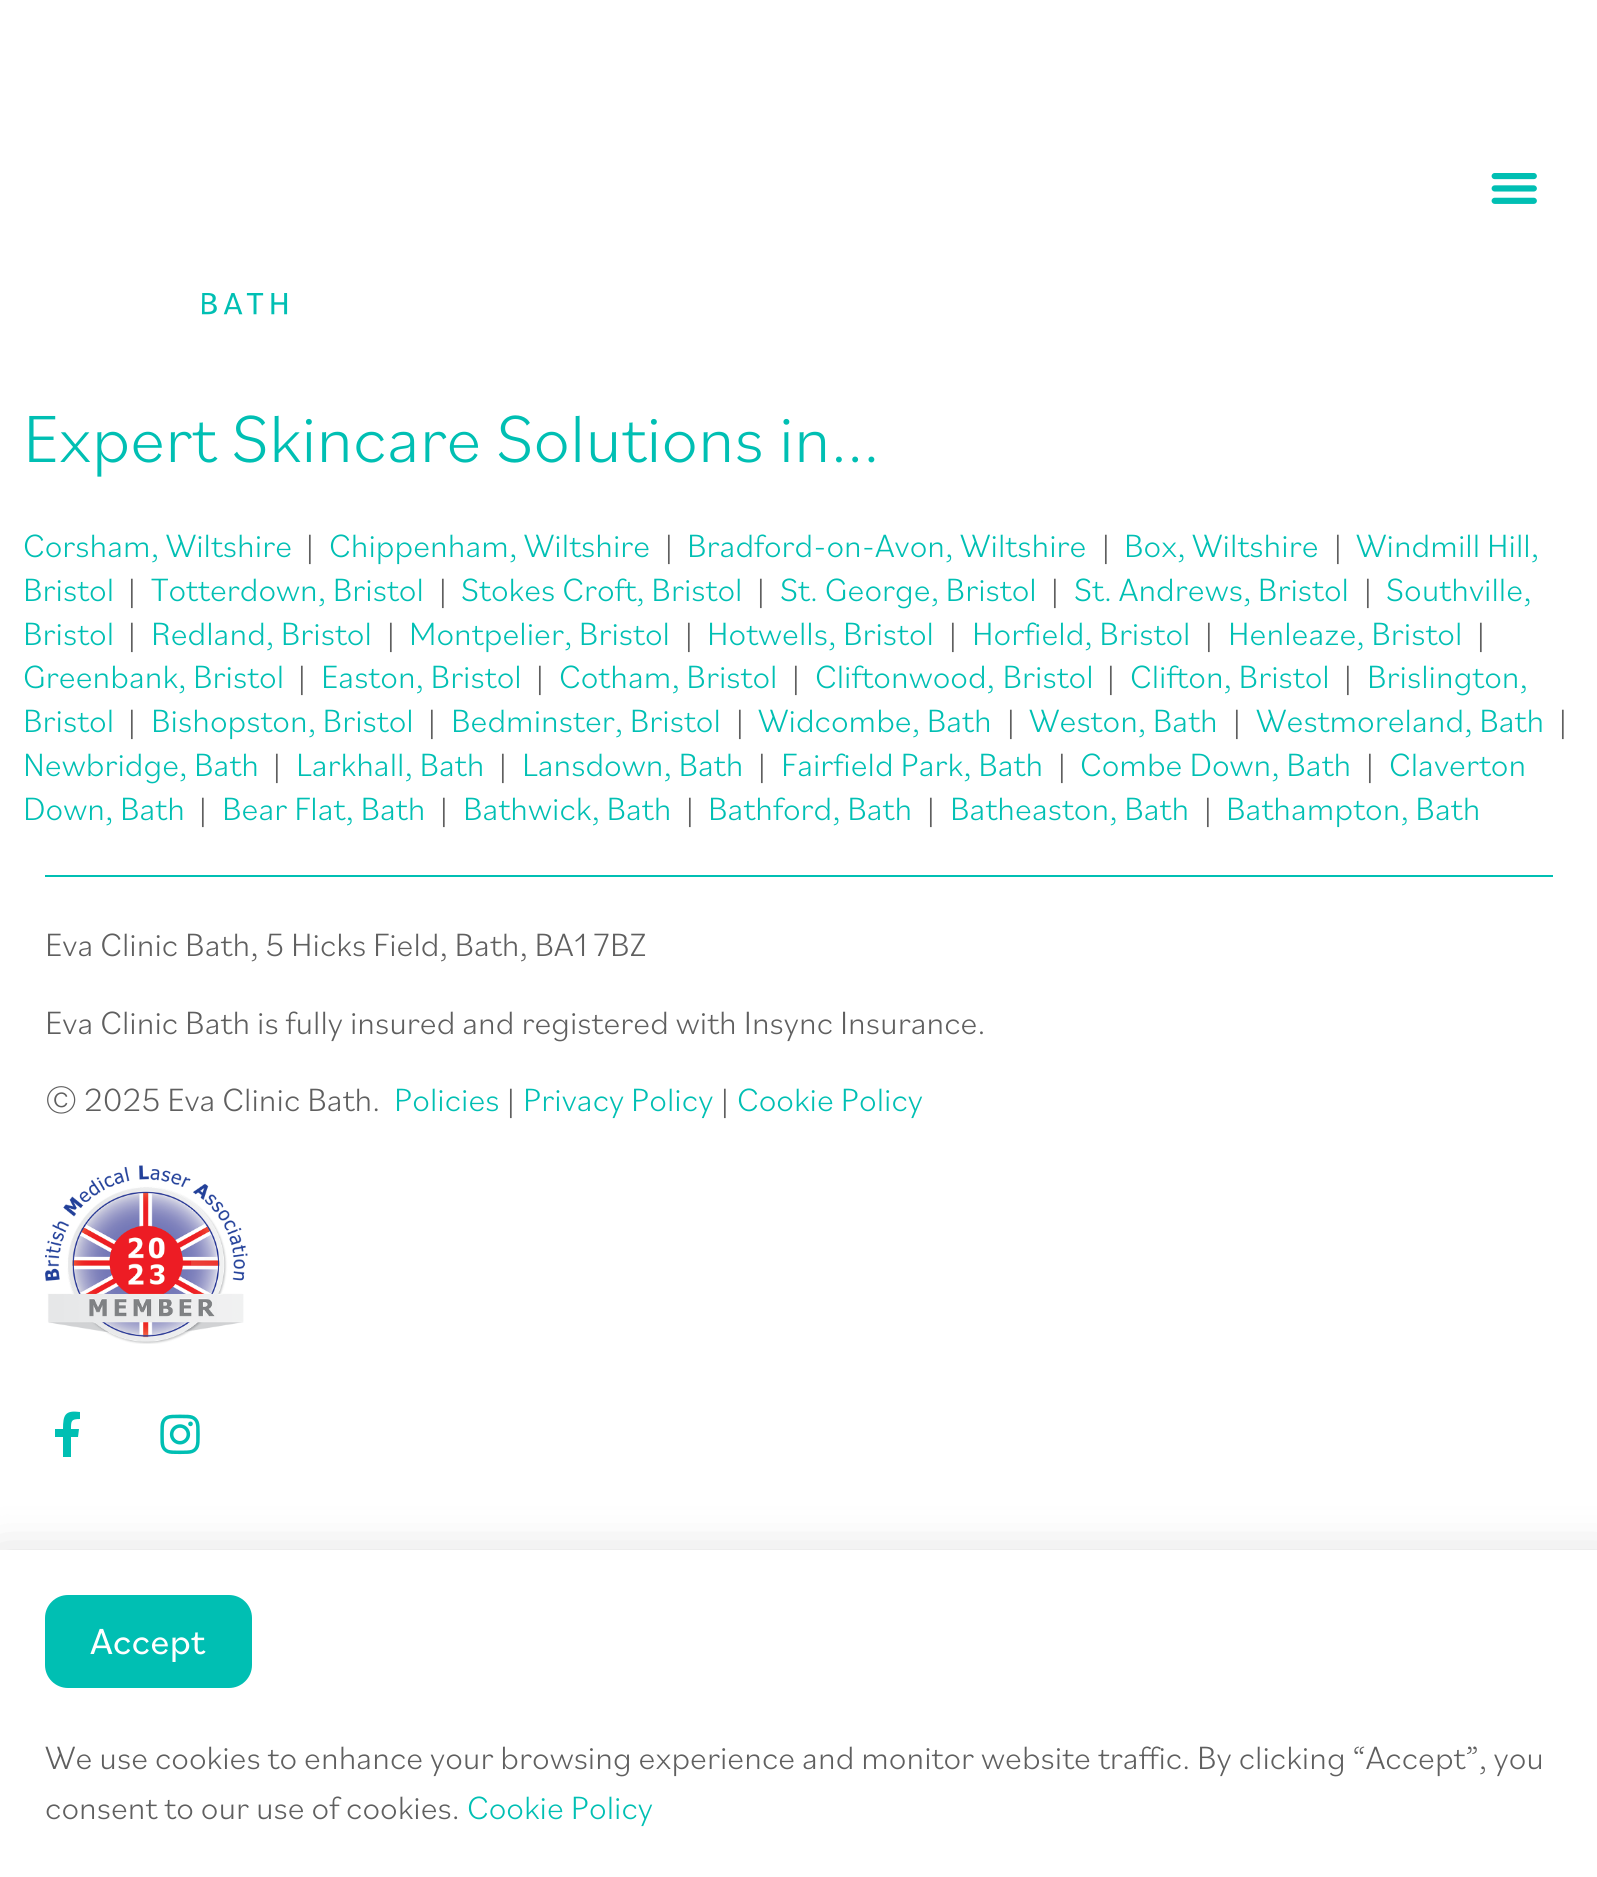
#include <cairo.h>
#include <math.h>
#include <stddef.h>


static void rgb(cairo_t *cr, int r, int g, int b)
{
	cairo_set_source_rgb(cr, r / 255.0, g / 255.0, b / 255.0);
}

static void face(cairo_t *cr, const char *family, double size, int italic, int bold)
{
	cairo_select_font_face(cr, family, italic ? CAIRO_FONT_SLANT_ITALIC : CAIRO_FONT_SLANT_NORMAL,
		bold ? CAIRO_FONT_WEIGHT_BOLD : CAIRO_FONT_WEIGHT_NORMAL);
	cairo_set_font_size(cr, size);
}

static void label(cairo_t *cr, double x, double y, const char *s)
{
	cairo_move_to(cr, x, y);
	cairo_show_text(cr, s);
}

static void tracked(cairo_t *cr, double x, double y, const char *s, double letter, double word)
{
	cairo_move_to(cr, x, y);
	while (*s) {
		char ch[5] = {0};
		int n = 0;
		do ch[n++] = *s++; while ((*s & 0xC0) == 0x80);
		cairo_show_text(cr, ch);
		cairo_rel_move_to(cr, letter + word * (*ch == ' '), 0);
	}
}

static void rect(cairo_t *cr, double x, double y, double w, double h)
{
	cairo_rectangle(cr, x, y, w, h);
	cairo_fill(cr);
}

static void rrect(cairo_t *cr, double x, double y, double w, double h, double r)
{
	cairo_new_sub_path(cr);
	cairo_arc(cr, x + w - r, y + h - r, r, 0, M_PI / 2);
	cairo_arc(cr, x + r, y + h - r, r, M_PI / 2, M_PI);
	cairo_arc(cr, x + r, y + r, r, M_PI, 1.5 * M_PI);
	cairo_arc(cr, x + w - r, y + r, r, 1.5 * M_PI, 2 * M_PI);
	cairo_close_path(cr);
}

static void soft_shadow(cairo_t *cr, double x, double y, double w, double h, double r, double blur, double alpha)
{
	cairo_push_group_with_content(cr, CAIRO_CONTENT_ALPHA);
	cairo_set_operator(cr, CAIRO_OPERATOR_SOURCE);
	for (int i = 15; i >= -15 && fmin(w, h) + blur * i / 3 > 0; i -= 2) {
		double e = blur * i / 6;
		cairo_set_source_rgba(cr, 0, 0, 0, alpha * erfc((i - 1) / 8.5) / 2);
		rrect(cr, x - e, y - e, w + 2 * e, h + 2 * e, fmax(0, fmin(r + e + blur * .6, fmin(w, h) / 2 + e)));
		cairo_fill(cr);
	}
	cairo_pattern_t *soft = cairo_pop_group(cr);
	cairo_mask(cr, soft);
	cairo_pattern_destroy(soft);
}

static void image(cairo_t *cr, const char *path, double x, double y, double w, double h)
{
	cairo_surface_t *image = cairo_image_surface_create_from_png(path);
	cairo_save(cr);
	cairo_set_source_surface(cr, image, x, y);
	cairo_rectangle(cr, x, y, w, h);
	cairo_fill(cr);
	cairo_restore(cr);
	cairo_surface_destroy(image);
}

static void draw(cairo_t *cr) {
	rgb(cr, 255, 255, 255);
	cairo_paint(cr);
	image(cr, "image0.png", 1491, 173, 46, 31);
	image(cr, "image1.png", 201, 293, 87, 22);
	face(cr, "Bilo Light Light", 69.75, 0, 0);
	rgb(cr, 0, 191, 179);
	tracked(cr, 23, 462, "Expert Skincare Solutions in...", 0, 0.5);
	face(cr, "Bilo Light Light", 33.75, 0, 0);
	label(cr, 23, 557, "Corsham, Wiltshire");
	rgb(cr, 95, 95, 95);
	label(cr, 305, 557, "|");
	rgb(cr, 0, 191, 179);
	label(cr, 329, 557, "Chippenham, Wiltshire");
	rgb(cr, 95, 95, 95);
	label(cr, 664, 557, "|");
	rgb(cr, 0, 191, 179);
	label(cr, 687, 557, "Bradford-on-Avon, Wiltshire");
	rgb(cr, 95, 95, 95);
	label(cr, 1101, 557, "|");
	rgb(cr, 0, 191, 179);
	label(cr, 1124, 557, "Box, Wiltshire");
	rgb(cr, 95, 95, 95);
	label(cr, 1333, 557, "|");
	rgb(cr, 0, 191, 179);
	label(cr, 1356, 557, "Windmill Hill,");
	label(cr, 23, 601, "Bristol");
	rgb(cr, 95, 95, 95);
	label(cr, 127, 601, "|");
	rgb(cr, 0, 191, 179);
	label(cr, 151, 601, "Totterdown, Bristol");
	rgb(cr, 95, 95, 95);
	label(cr, 438, 601, "|");
	rgb(cr, 0, 191, 179);
	label(cr, 461, 601, "Stokes Croft, Bristol");
	rgb(cr, 95, 95, 95);
	label(cr, 756, 601, "|");
	rgb(cr, 0, 191, 179);
	label(cr, 780, 601, "St. George, Bristol");
	rgb(cr, 95, 95, 95);
	label(cr, 1050, 601, "|");
	rgb(cr, 0, 191, 179);
	label(cr, 1074, 601, "St. Andrews, Bristol");
	rgb(cr, 95, 95, 95);
	label(cr, 1363, 601, "|");
	rgb(cr, 0, 191, 179);
	label(cr, 1386, 601, "Southville,");
	label(cr, 23, 645, "Bristol");
	rgb(cr, 95, 95, 95);
	label(cr, 127, 645, "|");
	rgb(cr, 0, 191, 179);
	label(cr, 151, 645, "Redland, Bristol");
	rgb(cr, 95, 95, 95);
	label(cr, 386, 645, "|");
	rgb(cr, 0, 191, 179);
	label(cr, 409, 645, "Montpelier, Bristol");
	rgb(cr, 95, 95, 95);
	label(cr, 684, 645, "|");
	rgb(cr, 0, 191, 179);
	label(cr, 707, 645, "Hotwells, Bristol");
	rgb(cr, 95, 95, 95);
	label(cr, 948, 645, "|");
	rgb(cr, 0, 191, 179);
	label(cr, 972, 645, "Horfield, Bristol");
	rgb(cr, 95, 95, 95);
	label(cr, 1204, 645, "|");
	rgb(cr, 0, 191, 179);
	label(cr, 1228, 645, "Henleaze, Bristol");
	rgb(cr, 95, 95, 95);
	label(cr, 1476, 645, "|");
	rgb(cr, 0, 191, 179);
	label(cr, 23, 688, "Greenbank, Bristol");
	rgb(cr, 95, 95, 95);
	label(cr, 297, 688, "|");
	rgb(cr, 0, 191, 179);
	label(cr, 321, 688, "Easton, Bristol");
	rgb(cr, 95, 95, 95);
	label(cr, 535, 688, "|");
	rgb(cr, 0, 191, 179);
	label(cr, 559, 688, "Cotham, Bristol");
	rgb(cr, 95, 95, 95);
	label(cr, 791, 688, "|");
	rgb(cr, 0, 191, 179);
	tracked(cr, 815, 688, "Cliftonwood, Bristol", 0, 1);
	rgb(cr, 95, 95, 95);
	label(cr, 1106, 688, "|");
	rgb(cr, 0, 191, 179);
	label(cr, 1130, 688, "Clifton, Bristol");
	rgb(cr, 95, 95, 95);
	label(cr, 1343, 688, "|");
	rgb(cr, 0, 191, 179);
	label(cr, 1367, 688, "Brislington,");
	label(cr, 23, 732, "Bristol");
	rgb(cr, 95, 95, 95);
	label(cr, 127, 732, "|");
	rgb(cr, 0, 191, 179);
	label(cr, 151, 732, "Bishopston, Bristol");
	rgb(cr, 95, 95, 95);
	label(cr, 427, 732, "|");
	rgb(cr, 0, 191, 179);
	label(cr, 451, 732, "Bedminster, Bristol");
	rgb(cr, 95, 95, 95);
	label(cr, 735, 732, "|");
	rgb(cr, 0, 191, 179);
	label(cr, 758, 732, "Widcombe, Bath");
	rgb(cr, 95, 95, 95);
	label(cr, 1006, 732, "|");
	rgb(cr, 0, 191, 179);
	label(cr, 1029, 732, "Weston, Bath");
	rgb(cr, 95, 95, 95);
	label(cr, 1232, 732, "|");
	rgb(cr, 0, 191, 179);
	label(cr, 1256, 732, "Westmoreland, Bath");
	rgb(cr, 95, 95, 95);
	label(cr, 1558, 732, "|");
	rgb(cr, 0, 191, 179);
	label(cr, 23, 776, "Newbridge, Bath");
	rgb(cr, 95, 95, 95);
	label(cr, 272, 776, "|");
	rgb(cr, 0, 191, 179);
	label(cr, 296, 776, "Larkhall, Bath");
	rgb(cr, 95, 95, 95);
	label(cr, 498, 776, "|");
	rgb(cr, 0, 191, 179);
	label(cr, 522, 776, "Lansdown, Bath");
	rgb(cr, 95, 95, 95);
	label(cr, 757, 776, "|");
	rgb(cr, 0, 191, 179);
	label(cr, 781, 776, "Fairfield Park, Bath");
	rgb(cr, 95, 95, 95);
	label(cr, 1057, 776, "|");
	rgb(cr, 0, 191, 179);
	label(cr, 1080, 776, "Combe Down, Bath");
	rgb(cr, 95, 95, 95);
	label(cr, 1365, 776, "|");
	rgb(cr, 0, 191, 179);
	label(cr, 1389, 776, "Claverton");
	label(cr, 23, 820, "Down, Bath");
	rgb(cr, 95, 95, 95);
	label(cr, 198, 820, "|");
	rgb(cr, 0, 191, 179);
	label(cr, 222, 820, "Bear Flat, Bath");
	rgb(cr, 95, 95, 95);
	label(cr, 439, 820, "|");
	rgb(cr, 0, 191, 179);
	label(cr, 463, 820, "Bathwick, Bath");
	rgb(cr, 95, 95, 95);
	label(cr, 685, 820, "|");
	rgb(cr, 0, 191, 179);
	label(cr, 708, 820, "Bathford, Bath");
	rgb(cr, 95, 95, 95);
	label(cr, 926, 820, "|");
	rgb(cr, 0, 191, 179);
	label(cr, 950, 820, "Batheaston, Bath");
	rgb(cr, 95, 95, 95);
	label(cr, 1203, 820, "|");
	rgb(cr, 0, 191, 179);
	label(cr, 1226, 820, "Bathampton, Bath");
	rect(cr, 45, 875, 1508, 2);
	rgb(cr, 95, 95, 95);
	label(cr, 45, 956, "Eva Clinic Bath, 5 Hicks Field, Bath, BA1 7BZ");
	label(cr, 45, 1034, "Eva Clinic Bath is fully insured and registered with Insync Insurance.");
	label(cr, 45, 1111, "© 2025 Eva Clinic Bath.");
	rgb(cr, 0, 191, 179);
	label(cr, 394, 1111, "Policies");
	rgb(cr, 95, 95, 95);
	label(cr, 506, 1111, "|");
	rgb(cr, 0, 191, 179);
	label(cr, 523, 1111, "Privacy Policy");
	rgb(cr, 95, 95, 95);
	label(cr, 720, 1111, "|");
	rgb(cr, 0, 191, 179);
	label(cr, 737, 1111, "Cookie Policy");
	image(cr, "image2.png", 45, 1165, 203, 179);
	cairo_new_path(cr);
	cairo_move_to(cr, 78, 1437);
	cairo_line_to(cr, 71, 1437);
	cairo_line_to(cr, 71, 1457);
	cairo_line_to(cr, 63, 1457);
	cairo_line_to(cr, 63, 1437);
	cairo_line_to(cr, 55, 1437);
	cairo_line_to(cr, 55, 1429);
	cairo_line_to(cr, 63, 1429);
	cairo_curve_to(cr, 63, 1415, 65, 1410, 80, 1412);
	cairo_line_to(cr, 80, 1419);
	cairo_curve_to(cr, 71, 1419, 71, 1421, 71, 1429);
	cairo_line_to(cr, 79, 1429);
	cairo_close_path(cr);
	cairo_fill(cr);
	image(cr, "image3.png", 160, 1414, 40, 41);
	rgb(cr, 0, 0, 0);
	soft_shadow(cr, -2, 1562, 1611, 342, 0, 26, 0.2);
	rgb(cr, 255, 255, 255);
	rect(cr, 0, 1550, 1597, 327);
	rgb(cr, 0, 191, 179);
	rrect(cr, 45, 1595, 207, 93, 23);
	cairo_fill(cr);
	face(cr, "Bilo", 38, 0, 0);
	rgb(cr, 255, 255, 255);
	label(cr, 90, 1654, "Accept");
	face(cr, "Bilo Light Light", 33.75, 0, 0);
	rgb(cr, 95, 95, 95);
	label(cr, 45, 1769, "We use cookies to enhance your browsing experience and monitor website traffic. By clicking “Accept”, you");
	label(cr, 45, 1819, "consent to our use of cookies.");
	rgb(cr, 0, 191, 179);
	label(cr, 467, 1819, "Cookie Policy");
}

int main(void) {
	cairo_surface_t *surface = cairo_image_surface_create(CAIRO_FORMAT_RGB24, 1597, 1877);
	cairo_t *cr = cairo_create(surface);
	cairo_font_options_t *options = cairo_font_options_create();
	cairo_font_options_set_hint_metrics(options, CAIRO_HINT_METRICS_OFF);
	cairo_font_options_set_hint_style(options, CAIRO_HINT_STYLE_NONE);
	cairo_set_font_options(cr, options);
	cairo_set_miter_limit(cr, 4);
	draw(cr);
	cairo_surface_write_to_png(surface, "render.png");
	cairo_font_options_destroy(options);
	cairo_destroy(cr);
	cairo_surface_destroy(surface);
	return 0;
}
